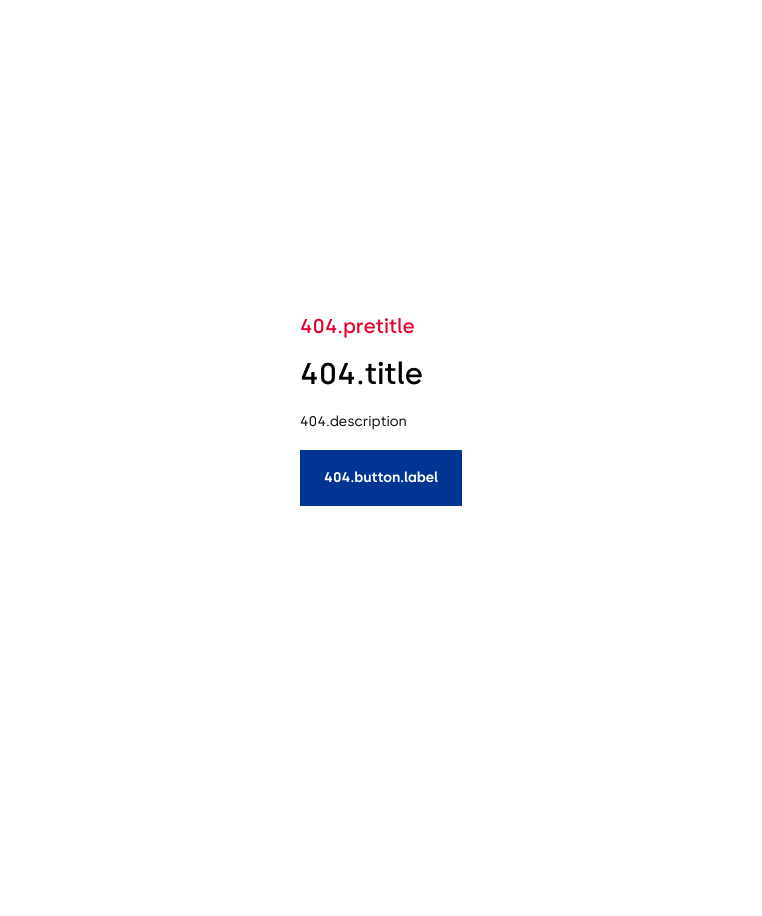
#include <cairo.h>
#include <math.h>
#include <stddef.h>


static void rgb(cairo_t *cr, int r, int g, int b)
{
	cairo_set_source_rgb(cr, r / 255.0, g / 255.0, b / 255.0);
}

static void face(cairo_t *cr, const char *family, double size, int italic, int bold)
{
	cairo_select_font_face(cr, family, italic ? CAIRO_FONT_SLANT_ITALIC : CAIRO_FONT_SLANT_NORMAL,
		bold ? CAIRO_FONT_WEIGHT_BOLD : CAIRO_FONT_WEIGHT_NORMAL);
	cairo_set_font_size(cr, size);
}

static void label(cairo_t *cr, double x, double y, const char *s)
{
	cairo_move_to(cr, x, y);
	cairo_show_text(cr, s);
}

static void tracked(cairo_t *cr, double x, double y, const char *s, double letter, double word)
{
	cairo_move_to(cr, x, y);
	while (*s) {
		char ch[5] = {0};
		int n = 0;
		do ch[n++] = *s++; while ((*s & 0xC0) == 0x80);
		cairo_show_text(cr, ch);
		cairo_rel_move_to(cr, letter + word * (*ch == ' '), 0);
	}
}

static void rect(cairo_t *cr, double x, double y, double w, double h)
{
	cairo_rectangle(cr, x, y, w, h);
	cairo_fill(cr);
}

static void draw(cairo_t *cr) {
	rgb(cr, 255, 255, 255);
	cairo_paint(cr);
	face(cr, "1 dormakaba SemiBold", 20, 0, 0);
	rgb(cr, 228, 0, 43);
	label(cr, 300, 333, "404.pretitle");
	face(cr, "1 dormakaba SemiBold", 30, 0, 0);
	rgb(cr, 0, 0, 0);
	label(cr, 300, 384, "404.title");
	face(cr, "1 dormakaba", 14, 0, 0);
	tracked(cr, 300, 426, "404.description", 0.1, 0);
	rgb(cr, 0, 53, 148);
	rect(cr, 300, 450, 162, 56);
	face(cr, "1 dormakaba", 14, 0, 1);
	rgb(cr, 255, 255, 255);
	label(cr, 324, 482, "404.button.label");
}

int main(void) {
	cairo_surface_t *surface = cairo_image_surface_create(CAIRO_FORMAT_RGB24, 762, 916);
	cairo_t *cr = cairo_create(surface);
	cairo_font_options_t *options = cairo_font_options_create();
	cairo_font_options_set_hint_metrics(options, CAIRO_HINT_METRICS_OFF);
	cairo_font_options_set_hint_style(options, CAIRO_HINT_STYLE_NONE);
	cairo_set_font_options(cr, options);
	cairo_set_miter_limit(cr, 4);
	draw(cr);
	cairo_surface_write_to_png(surface, "render.png");
	cairo_font_options_destroy(options);
	cairo_destroy(cr);
	cairo_surface_destroy(surface);
	return 0;
}
